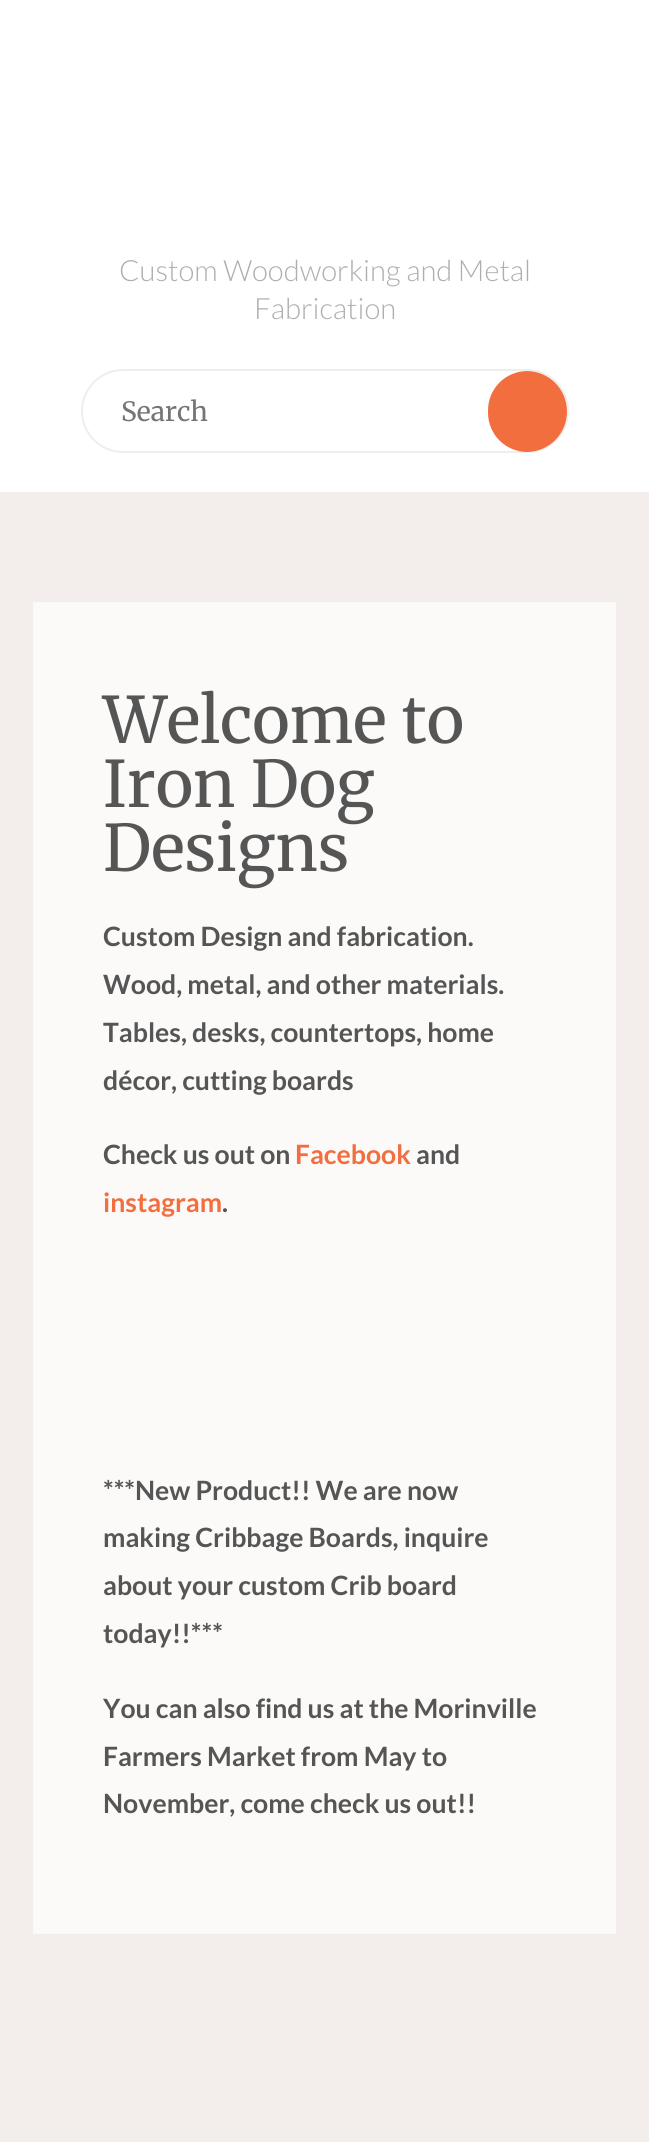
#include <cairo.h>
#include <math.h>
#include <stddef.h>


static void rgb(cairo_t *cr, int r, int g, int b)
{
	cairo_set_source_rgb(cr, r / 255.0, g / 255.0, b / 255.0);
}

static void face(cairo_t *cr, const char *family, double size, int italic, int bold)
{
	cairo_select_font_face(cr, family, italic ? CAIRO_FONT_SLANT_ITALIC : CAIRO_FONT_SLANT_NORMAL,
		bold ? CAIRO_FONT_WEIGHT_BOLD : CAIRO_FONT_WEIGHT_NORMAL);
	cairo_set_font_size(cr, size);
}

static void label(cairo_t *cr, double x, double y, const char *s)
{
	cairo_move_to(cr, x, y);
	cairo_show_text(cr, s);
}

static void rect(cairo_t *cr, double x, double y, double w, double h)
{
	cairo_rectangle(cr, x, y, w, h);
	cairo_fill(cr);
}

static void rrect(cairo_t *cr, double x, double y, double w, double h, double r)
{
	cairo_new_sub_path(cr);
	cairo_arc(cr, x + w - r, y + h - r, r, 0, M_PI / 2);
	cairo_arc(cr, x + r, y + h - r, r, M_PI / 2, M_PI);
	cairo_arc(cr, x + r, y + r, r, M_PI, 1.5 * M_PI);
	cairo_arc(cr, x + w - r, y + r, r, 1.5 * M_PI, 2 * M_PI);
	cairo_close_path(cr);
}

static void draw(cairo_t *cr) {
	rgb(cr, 243, 238, 235);
	cairo_paint(cr);
	rgb(cr, 255, 255, 255);
	rect(cr, 0, 0, 649, 492);
	face(cr, "Lato Light", 29.25, 0, 0);
	rgb(cr, 174, 174, 174);
	label(cr, 119, 281, "Custom Woodworking and Metal");
	label(cr, 254, 319, "Fabrication");
	rrect(cr, 82, 370, 486, 82, 41);
	rgb(cr, 238, 238, 238);
	cairo_stroke(cr);
	face(cr, "Merriweather", 26.6, 0, 0);
	rgb(cr, 117, 117, 117);
	label(cr, 121, 421, "Search");
	rgb(cr, 242, 110, 63);
	cairo_new_path(cr);
	cairo_move_to(cr, 527.5, 371);
	cairo_line_to(cr, 526.5, 371);
	cairo_curve_to(cr, 549, 371, 567, 389, 567, 411.5);
	cairo_curve_to(cr, 567, 434, 549, 452, 526.5, 452);
	cairo_line_to(cr, 527.5, 452);
	cairo_curve_to(cr, 505.5, 452, 488, 434.5, 488, 412.5);
	cairo_line_to(cr, 488, 410.5);
	cairo_curve_to(cr, 488, 388.5, 505.5, 371, 527.5, 371);
	cairo_close_path(cr);
	cairo_fill(cr);
	rgb(cr, 251, 250, 249);
	rect(cr, 33, 602, 583, 1332);
	face(cr, "Merriweather", 64, 0, 0);
	rgb(cr, 85, 85, 85);
	label(cr, 103, 743, "Welcome to");
	label(cr, 103, 807, "Iron Dog");
	label(cr, 103, 871, "Designs");
	face(cr, "Lato", 26.6, 0, 1);
	label(cr, 103, 946, "Custom Design and fabrication.");
	label(cr, 103, 994, "Wood, metal, and other materials.");
	label(cr, 103, 1042, "Tables, desks, countertops, home");
	label(cr, 103, 1090, "décor, cutting boards");
	label(cr, 103, 1164, "Check us out on");
	rgb(cr, 242, 110, 63);
	label(cr, 295, 1164, "Facebook");
	rgb(cr, 85, 85, 85);
	label(cr, 416, 1164, "and");
	rgb(cr, 242, 110, 63);
	label(cr, 103, 1212, "instagram");
	rgb(cr, 85, 85, 85);
	label(cr, 222, 1212, ".");
	label(cr, 103, 1500, "***New Product!! We are now");
	label(cr, 103, 1547, "making Cribbage Boards, inquire");
	label(cr, 103, 1595, "about your custom Crib board");
	label(cr, 103, 1643, "today!!***");
	label(cr, 103, 1718, "You can also find us at the Morinville");
	label(cr, 103, 1766, "Farmers Market from May to");
	label(cr, 103, 1813, "November, come check us out!!");
}

int main(void) {
	cairo_surface_t *surface = cairo_image_surface_create(CAIRO_FORMAT_RGB24, 649, 2142);
	cairo_t *cr = cairo_create(surface);
	cairo_font_options_t *options = cairo_font_options_create();
	cairo_font_options_set_hint_metrics(options, CAIRO_HINT_METRICS_OFF);
	cairo_font_options_set_hint_style(options, CAIRO_HINT_STYLE_NONE);
	cairo_set_font_options(cr, options);
	cairo_set_miter_limit(cr, 4);
	draw(cr);
	cairo_surface_write_to_png(surface, "render.png");
	cairo_font_options_destroy(options);
	cairo_destroy(cr);
	cairo_surface_destroy(surface);
	return 0;
}
